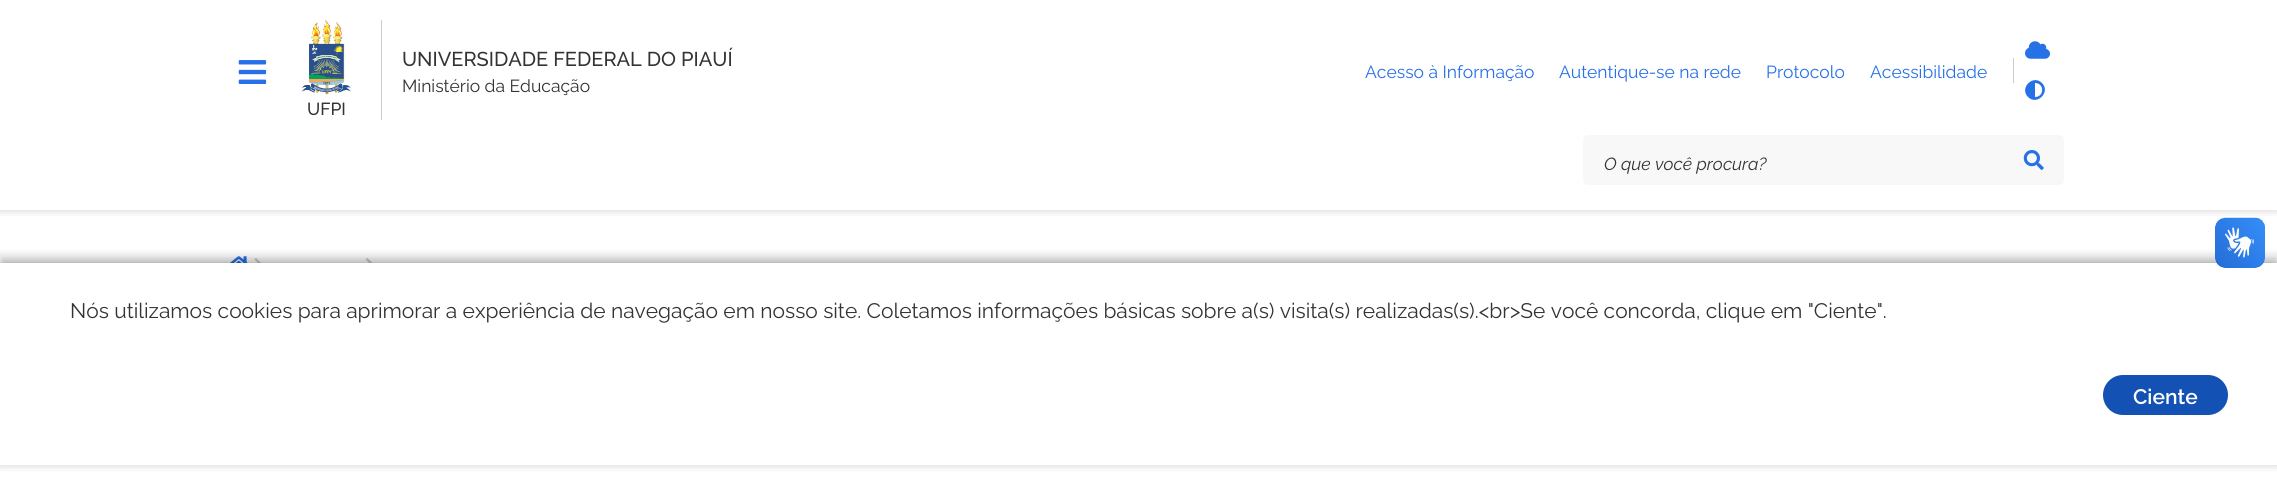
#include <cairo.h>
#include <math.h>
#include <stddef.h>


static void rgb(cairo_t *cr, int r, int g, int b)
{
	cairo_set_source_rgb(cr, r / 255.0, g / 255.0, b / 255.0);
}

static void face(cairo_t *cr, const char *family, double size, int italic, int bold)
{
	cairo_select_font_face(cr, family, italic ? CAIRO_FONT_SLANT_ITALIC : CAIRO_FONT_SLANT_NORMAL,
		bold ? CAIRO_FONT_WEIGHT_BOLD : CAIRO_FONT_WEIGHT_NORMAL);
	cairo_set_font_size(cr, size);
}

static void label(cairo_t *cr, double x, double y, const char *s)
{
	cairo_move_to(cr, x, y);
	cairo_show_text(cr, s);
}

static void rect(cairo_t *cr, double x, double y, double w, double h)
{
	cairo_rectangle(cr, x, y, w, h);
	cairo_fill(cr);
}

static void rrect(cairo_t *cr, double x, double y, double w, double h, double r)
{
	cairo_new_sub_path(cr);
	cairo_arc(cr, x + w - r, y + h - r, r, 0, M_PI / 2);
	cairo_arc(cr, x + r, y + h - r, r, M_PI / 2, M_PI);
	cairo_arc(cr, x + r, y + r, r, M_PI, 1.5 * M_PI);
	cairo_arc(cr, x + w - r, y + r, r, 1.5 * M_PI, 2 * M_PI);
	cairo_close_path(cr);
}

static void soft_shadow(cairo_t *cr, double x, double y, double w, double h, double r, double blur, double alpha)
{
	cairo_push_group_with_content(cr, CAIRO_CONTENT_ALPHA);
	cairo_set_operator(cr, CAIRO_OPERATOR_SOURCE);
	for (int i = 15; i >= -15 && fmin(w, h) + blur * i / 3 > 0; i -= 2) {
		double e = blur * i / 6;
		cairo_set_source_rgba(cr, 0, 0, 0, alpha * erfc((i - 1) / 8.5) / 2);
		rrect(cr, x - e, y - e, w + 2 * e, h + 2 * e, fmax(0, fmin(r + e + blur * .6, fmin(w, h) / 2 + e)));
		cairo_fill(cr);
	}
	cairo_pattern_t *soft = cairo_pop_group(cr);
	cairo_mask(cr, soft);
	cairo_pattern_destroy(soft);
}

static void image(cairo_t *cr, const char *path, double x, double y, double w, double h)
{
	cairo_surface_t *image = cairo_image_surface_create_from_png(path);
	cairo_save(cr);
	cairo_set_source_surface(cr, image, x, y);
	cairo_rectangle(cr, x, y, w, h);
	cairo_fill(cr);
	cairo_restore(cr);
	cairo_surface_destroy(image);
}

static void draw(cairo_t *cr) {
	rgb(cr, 255, 255, 255);
	cairo_paint(cr);
	cairo_save(cr);
	cairo_rectangle(cr, 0, 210, 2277, 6);
	cairo_clip(cr);
	rgb(cr, 0, 0, 0);
	soft_shadow(cr, 0, 1, 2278, 210, 0, 4, 0.16);
	cairo_restore(cr);
	image(cr, "image0.png", 238, 60, 29, 24);
	rgb(cr, 204, 204, 204);
	rect(cr, 381, 20, 1, 100);
	face(cr, "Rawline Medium", 20, 0, 0);
	rgb(cr, 51, 51, 51);
	label(cr, 402, 66, "UNIVERSIDADE FEDERAL DO PIAUÍ");
	face(cr, "Rawline", 17.5, 0, 0);
	label(cr, 402, 92, "Ministério da Educação");
	image(cr, "image1.png", 302, 20, 50, 75);
	face(cr, "Rawline Medium", 17.5, 0, 0);
	label(cr, 307, 115, "UFPI");
	rgb(cr, 204, 204, 204);
	rect(cr, 2013, 58, 1, 25);
	face(cr, "Rawline", 17.5, 0, 0);
	rgb(cr, 38, 112, 232);
	label(cr, 1365, 78, "Acesso à Informação");
	label(cr, 1559, 78, "Autentique-se na rede");
	label(cr, 1766, 78, "Protocolo");
	label(cr, 1870, 78, "Acessibilidade");
	image(cr, "image2.png", 2025, 41, 25, 18);
	cairo_new_path(cr);
	cairo_move_to(cr, 2028, 97);
	cairo_curve_to(cr, 2019, 88, 2033, 74, 2042, 83);
	cairo_curve_to(cr, 2051, 92, 2037, 106, 2028, 97);
	cairo_close_path(cr);
	cairo_move_to(cr, 2035, 97);
	cairo_curve_to(cr, 2044.5, 97, 2044.5, 83, 2035, 83);
	cairo_close_path(cr);
	cairo_fill(cr);
	rgb(cr, 248, 248, 248);
	rrect(cr, 1583, 135, 481, 50, 5);
	cairo_fill(cr);
	face(cr, "Rawline", 17.5, 1, 0);
	rgb(cr, 51, 51, 51);
	label(cr, 1604, 170, "O que você procura?");
	image(cr, "image3.png", 2023, 150, 21, 20);
	image(cr, "image4.png", 230, 256, 18, 7);
	image(cr, "image5.png", 254, 258, 8, 5);
	image(cr, "image6.png", 365, 258, 8, 5);
	rgb(cr, 0, 0, 0);
	soft_shadow(cr, 0, 255, 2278, 223, 0, 4, 0.16);
	soft_shadow(cr, 0, 264, 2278, 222, 0, 4, 0.16);
	rgb(cr, 255, 255, 255);
	rect(cr, 0, 263, 2277, 222);
	cairo_save(cr);
	cairo_set_fill_rule(cr, CAIRO_FILL_RULE_EVEN_ODD);
	cairo_new_path(cr);
	cairo_move_to(cr, 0, 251);
	cairo_line_to(cr, 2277, 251);
	cairo_line_to(cr, 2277, 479);
	cairo_line_to(cr, 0, 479);
	cairo_close_path(cr);
	cairo_move_to(cr, 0, 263);
	cairo_line_to(cr, 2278, 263);
	cairo_line_to(cr, 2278, 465);
	cairo_line_to(cr, 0, 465);
	cairo_close_path(cr);
	cairo_clip(cr);
	rgb(cr, 0, 0, 0);
	soft_shadow(cr, 0, 264, 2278, 202, 0, 4, 0.16);
	cairo_restore(cr);
	image(cr, "image7.png", 2215, 217, 50, 51);
	image(cr, "image8.png", 2215, 218, 50, 50);
	face(cr, "Rawline", 21, 0, 0);
	rgb(cr, 51, 51, 51);
	label(cr, 70, 318, "Nós utilizamos cookies para aprimorar a experiência de navegação em nosso site. Coletamos informações básicas sobre a(s) visita(s) realizadas(s).<br>Se você concorda, clique em \"Ciente\".");
	rgb(cr, 19, 81, 180);
	rrect(cr, 2103, 375, 125, 40, 20);
	cairo_fill(cr);
	face(cr, "Rawline SemiBold", 21, 0, 0);
	rgb(cr, 255, 255, 255);
	label(cr, 2133, 404, "Ciente");
}

int main(void) {
	cairo_surface_t *surface = cairo_image_surface_create(CAIRO_FORMAT_RGB24, 2277, 485);
	cairo_t *cr = cairo_create(surface);
	cairo_font_options_t *options = cairo_font_options_create();
	cairo_font_options_set_hint_metrics(options, CAIRO_HINT_METRICS_OFF);
	cairo_font_options_set_hint_style(options, CAIRO_HINT_STYLE_NONE);
	cairo_set_font_options(cr, options);
	cairo_set_miter_limit(cr, 4);
	draw(cr);
	cairo_surface_write_to_png(surface, "render.png");
	cairo_font_options_destroy(options);
	cairo_destroy(cr);
	cairo_surface_destroy(surface);
	return 0;
}
